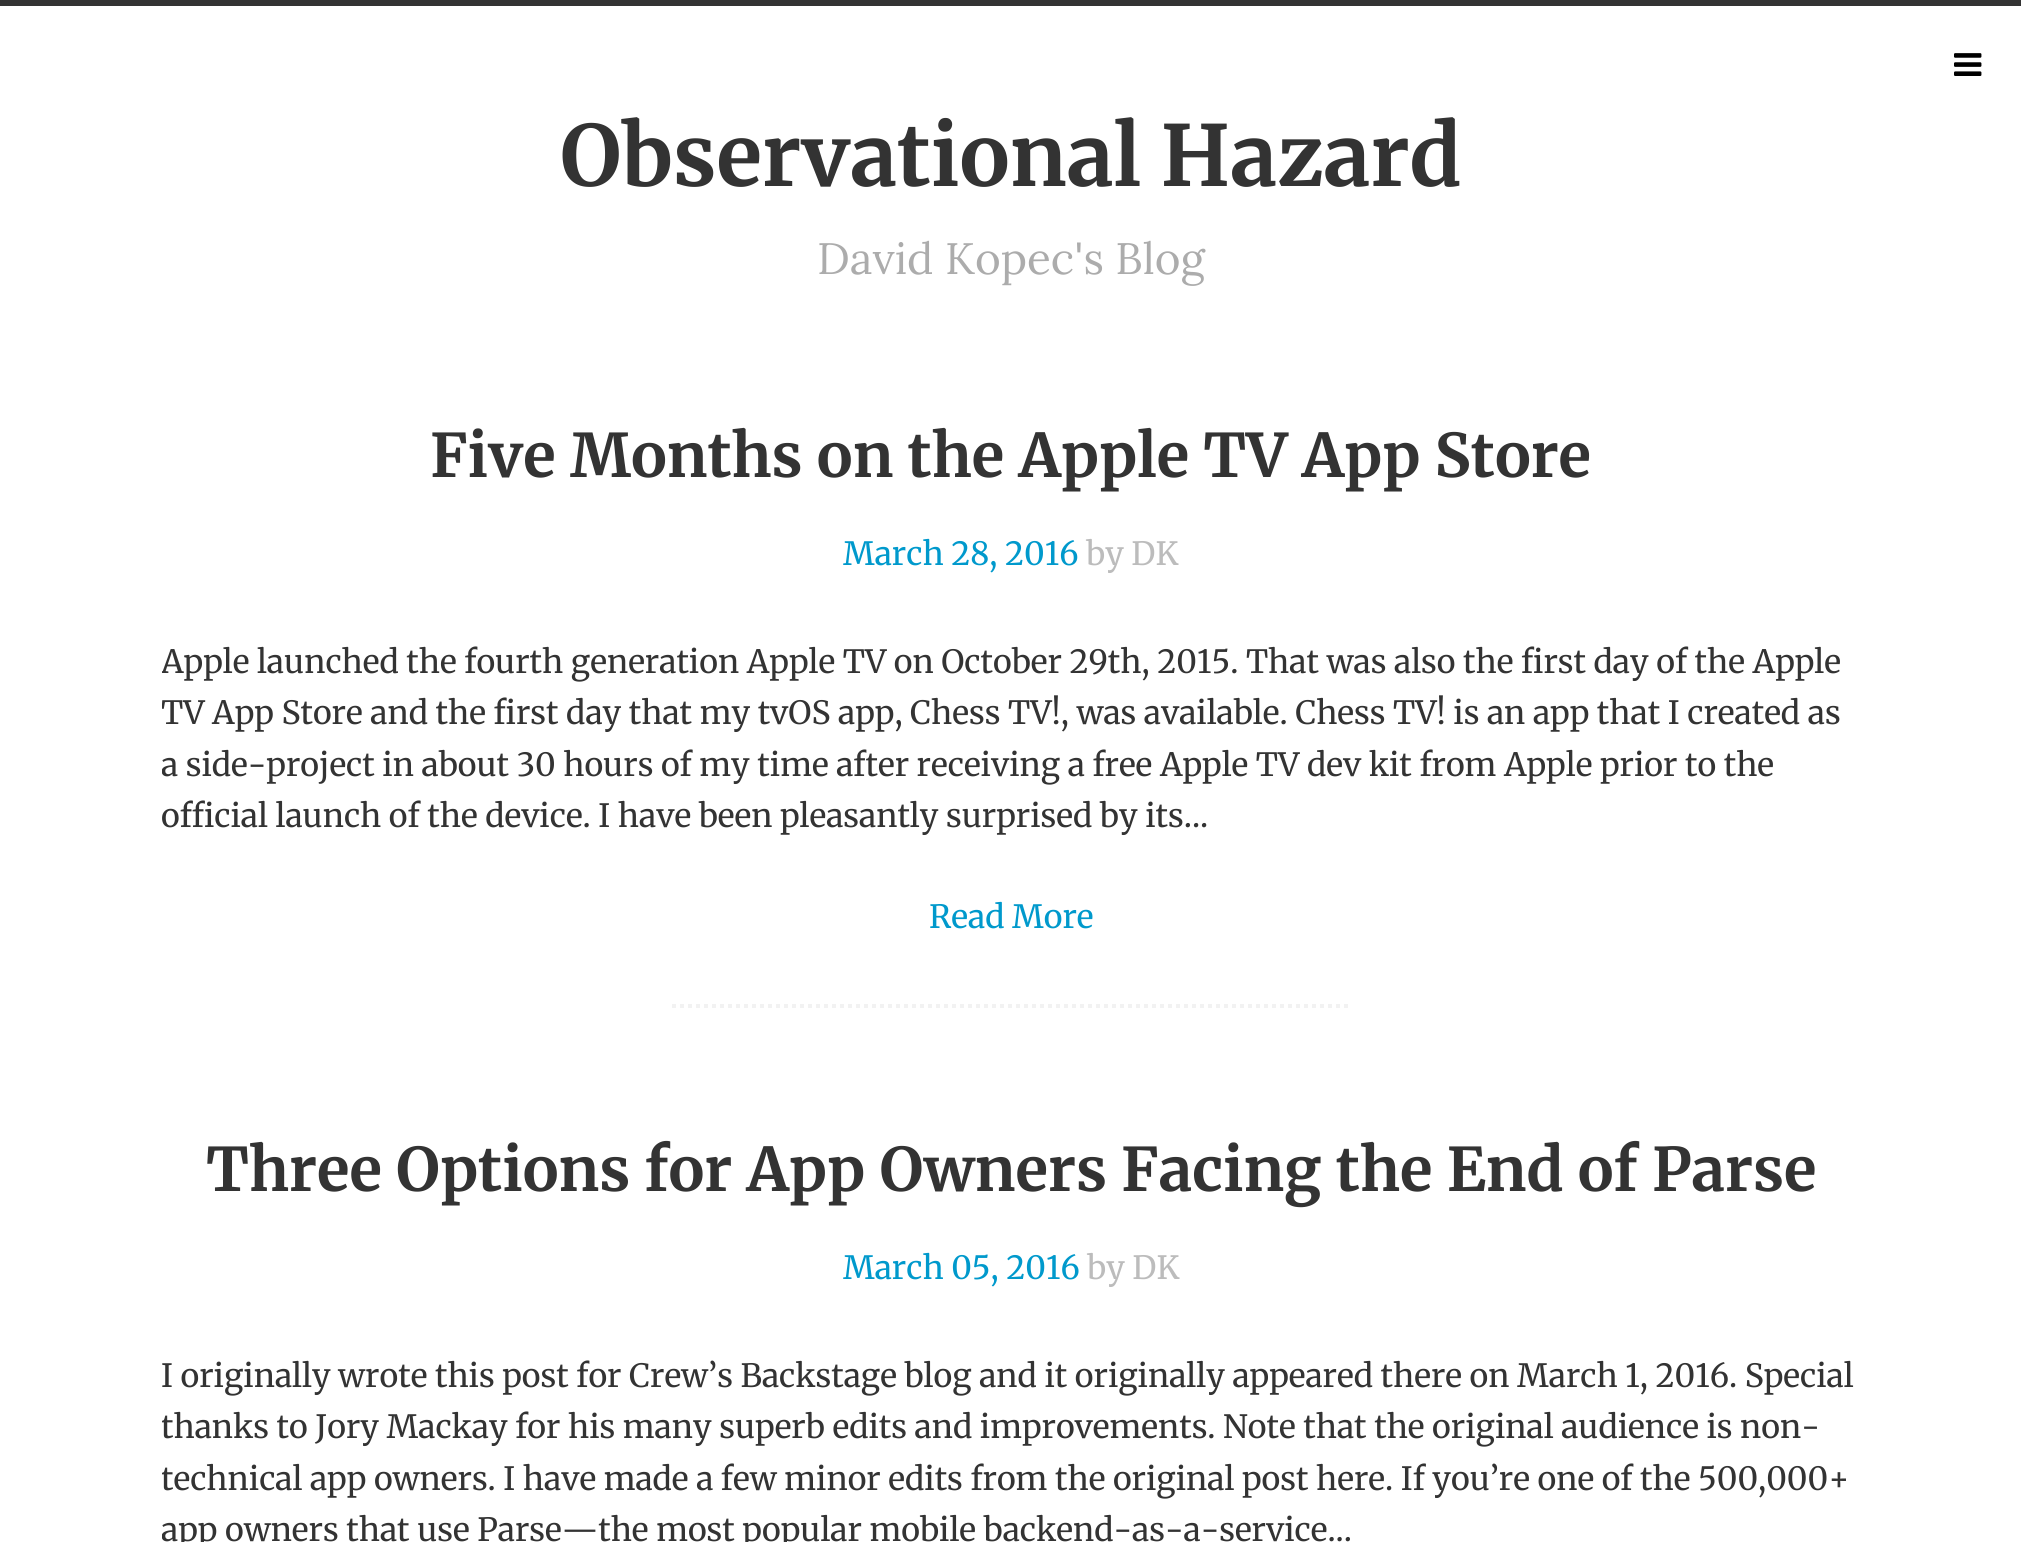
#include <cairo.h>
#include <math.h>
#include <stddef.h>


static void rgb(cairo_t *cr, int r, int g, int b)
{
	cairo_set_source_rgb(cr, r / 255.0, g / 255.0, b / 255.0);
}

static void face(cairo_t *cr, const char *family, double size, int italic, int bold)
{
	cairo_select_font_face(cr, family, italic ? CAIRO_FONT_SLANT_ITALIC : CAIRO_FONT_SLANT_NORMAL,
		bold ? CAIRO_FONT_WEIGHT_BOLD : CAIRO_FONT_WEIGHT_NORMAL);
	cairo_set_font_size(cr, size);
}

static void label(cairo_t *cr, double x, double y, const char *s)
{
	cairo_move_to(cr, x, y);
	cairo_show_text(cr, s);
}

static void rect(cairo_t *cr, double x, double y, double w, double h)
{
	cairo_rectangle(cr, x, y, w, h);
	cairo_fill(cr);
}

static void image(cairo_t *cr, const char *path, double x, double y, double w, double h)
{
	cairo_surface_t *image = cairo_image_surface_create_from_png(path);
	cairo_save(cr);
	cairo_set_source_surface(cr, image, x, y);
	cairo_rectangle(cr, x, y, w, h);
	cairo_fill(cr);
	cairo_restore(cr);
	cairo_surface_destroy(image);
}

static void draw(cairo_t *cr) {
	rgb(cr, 255, 255, 255);
	cairo_paint(cr);
	rgb(cr, 51, 51, 51);
	rect(cr, 0, 0, 2021, 6);
	face(cr, "Merriweather", 84, 0, 1);
	label(cr, 560, 186, "Observational Hazard");
	face(cr, "Lora", 44, 0, 0);
	rgb(cr, 172, 172, 172);
	label(cr, 817, 274, "David Kopec's Blog");
	image(cr, "image0.png", 1954, 53, 28, 23);
	face(cr, "Merriweather", 60, 0, 1);
	rgb(cr, 51, 51, 51);
	label(cr, 430, 477, "Five Months on the Apple TV App Store");
	face(cr, "Merriweather", 32, 0, 0);
	rgb(cr, 0, 153, 204);
	label(cr, 843, 565, "March 28, 2016");
	rgb(cr, 188, 188, 188);
	label(cr, 1086, 565, "by DK");
	cairo_save(cr);
	cairo_rectangle(cr, 162, 638, 1700, 204);
	cairo_clip(cr);
	rgb(cr, 51, 51, 51);
	label(cr, 161, 673, "Apple launched the fourth generation Apple TV on October 29th, 2015. That was also the first day of the Apple");
	label(cr, 161, 724, "TV App Store and the first day that my tvOS app, Chess TV!, was available. Chess TV! is an app that I created as");
	label(cr, 161, 776, "a side-project in about 30 hours of my time after receiving a free Apple TV dev kit from Apple prior to the");
	cairo_restore(cr);
	rgb(cr, 51, 51, 51);
	label(cr, 161, 827, "official launch of the device. I have been pleasantly surprised by its...");
	rgb(cr, 0, 153, 204);
	label(cr, 929, 928, "Read More");
	cairo_new_path(cr);
	cairo_move_to(cr, 672, 1006);
	cairo_line_to(cr, 1352, 1006);
	rgb(cr, 242, 242, 242);
	cairo_set_line_width(cr, 4);
	cairo_set_dash(cr, (double[]){4, 4}, 2, 0);
	cairo_stroke(cr);
	face(cr, "Merriweather", 60, 0, 1);
	rgb(cr, 51, 51, 51);
	label(cr, 206, 1191, "Three Options for App Owners Facing the End of Parse");
	face(cr, "Merriweather", 32, 0, 0);
	rgb(cr, 0, 153, 204);
	label(cr, 843, 1279, "March 05, 2016");
	rgb(cr, 188, 188, 188);
	label(cr, 1087, 1279, "by DK");
	rgb(cr, 51, 51, 51);
	label(cr, 161, 1387, "I originally wrote this post for Crew’s Backstage blog and it originally appeared there on March 1, 2016. Special");
	cairo_save(cr);
	cairo_rectangle(cr, 162, 1352, 1700, 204);
	cairo_clip(cr);
	label(cr, 161, 1438, "thanks to Jory Mackay for his many superb edits and improvements. Note that the original audience is non-");
	label(cr, 161, 1490, "technical app owners. I have made a few minor edits from the original post here. If you’re one of the 500,000+");
	label(cr, 161, 1541, "app owners that use Parse—the most popular mobile backend-as-a-service...");
	cairo_restore(cr);
}

int main(void) {
	cairo_surface_t *surface = cairo_image_surface_create(CAIRO_FORMAT_RGB24, 2021, 1542);
	cairo_t *cr = cairo_create(surface);
	cairo_font_options_t *options = cairo_font_options_create();
	cairo_font_options_set_hint_metrics(options, CAIRO_HINT_METRICS_OFF);
	cairo_font_options_set_hint_style(options, CAIRO_HINT_STYLE_NONE);
	cairo_set_font_options(cr, options);
	cairo_set_miter_limit(cr, 4);
	draw(cr);
	cairo_surface_write_to_png(surface, "render.png");
	cairo_font_options_destroy(options);
	cairo_destroy(cr);
	cairo_surface_destroy(surface);
	return 0;
}
